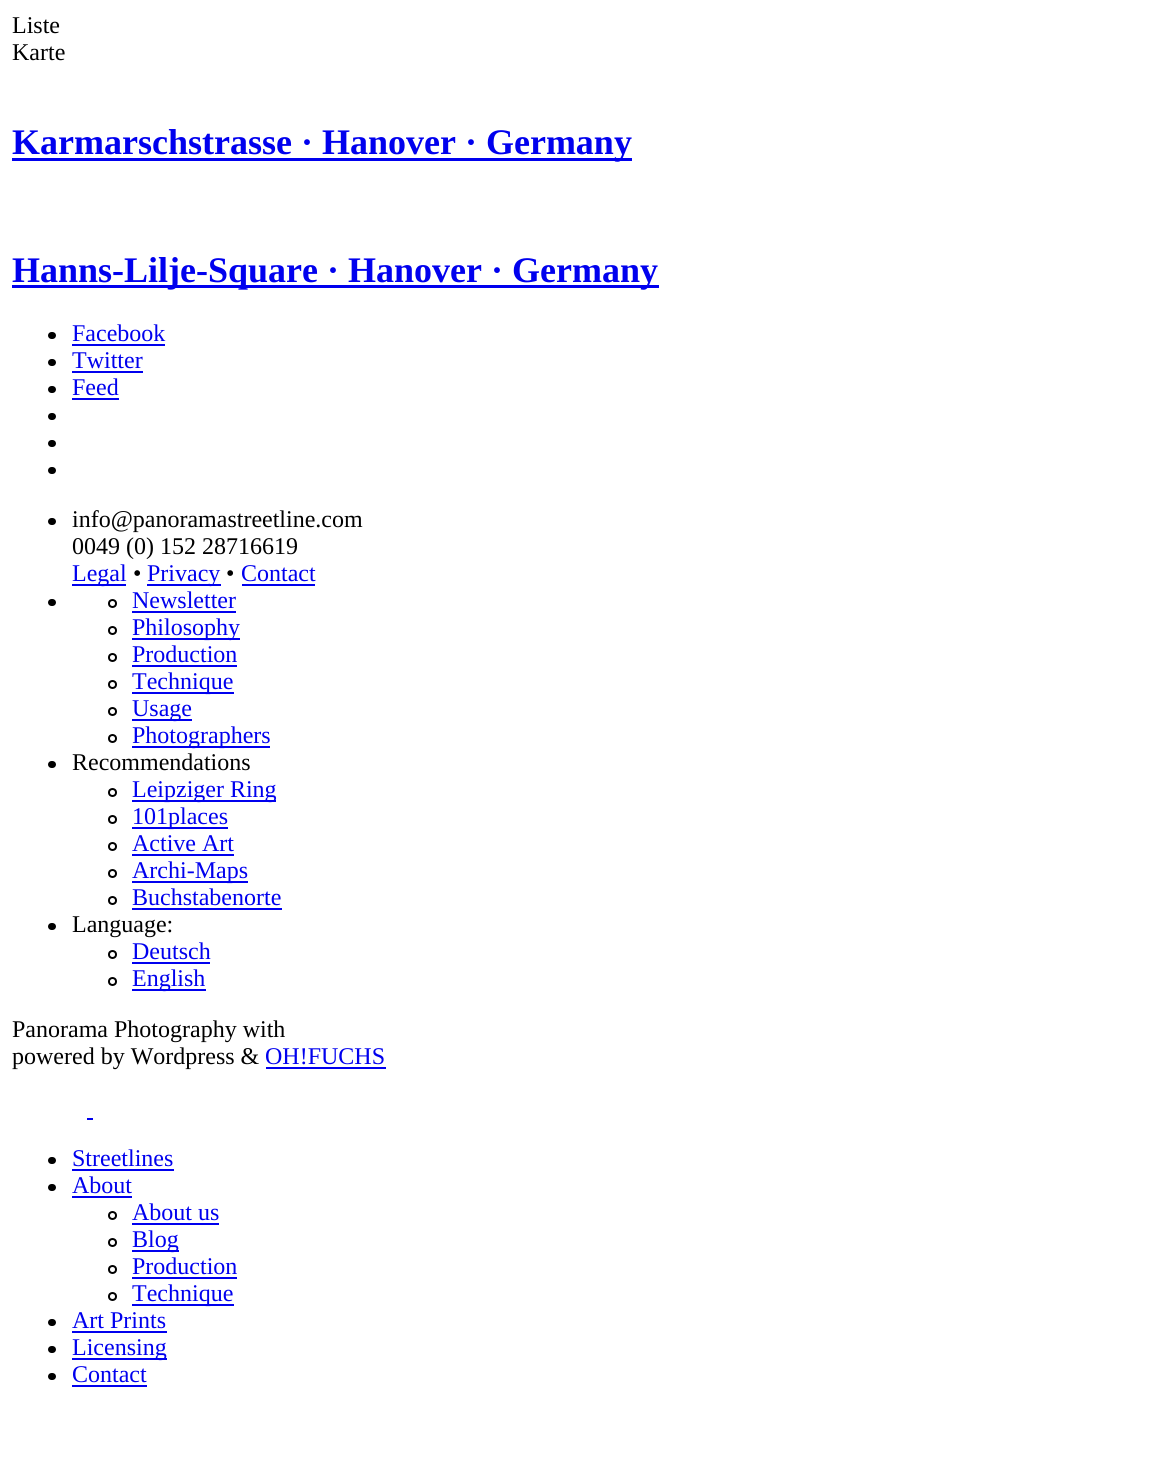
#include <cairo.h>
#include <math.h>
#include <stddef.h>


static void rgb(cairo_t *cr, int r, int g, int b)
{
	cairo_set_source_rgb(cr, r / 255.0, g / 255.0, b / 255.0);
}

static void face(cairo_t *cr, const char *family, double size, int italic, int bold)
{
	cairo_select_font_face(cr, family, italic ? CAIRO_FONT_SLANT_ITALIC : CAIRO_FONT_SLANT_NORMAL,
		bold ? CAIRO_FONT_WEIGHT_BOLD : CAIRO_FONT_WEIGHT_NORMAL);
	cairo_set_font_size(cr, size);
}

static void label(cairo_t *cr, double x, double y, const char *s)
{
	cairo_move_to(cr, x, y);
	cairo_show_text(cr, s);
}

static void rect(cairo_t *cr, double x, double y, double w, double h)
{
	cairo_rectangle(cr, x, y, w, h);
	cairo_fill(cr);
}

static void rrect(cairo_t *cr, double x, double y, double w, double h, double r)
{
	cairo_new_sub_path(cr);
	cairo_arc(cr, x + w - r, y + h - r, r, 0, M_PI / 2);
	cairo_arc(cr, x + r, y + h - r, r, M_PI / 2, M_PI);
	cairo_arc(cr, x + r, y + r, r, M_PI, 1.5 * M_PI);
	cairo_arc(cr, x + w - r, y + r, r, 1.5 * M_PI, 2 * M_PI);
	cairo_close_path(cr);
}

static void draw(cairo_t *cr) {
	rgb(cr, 255, 255, 255);
	cairo_paint(cr);
	face(cr, "Liberation Serif", 24, 0, 0);
	rgb(cr, 0, 0, 0);
	label(cr, 12, 33, "Liste");
	label(cr, 12, 60, "Karte");
	rgb(cr, 0, 0, 238);
	rect(cr, 12, 158, 620, 3);
	face(cr, "Liberation Serif", 36, 0, 1);
	label(cr, 12, 154, "Karmarschstrasse · Hanover · Germany");
	rect(cr, 12, 285, 647, 3);
	label(cr, 12, 282, "Hanns-Lilje-Square · Hanover · Germany");
	rgb(cr, 0, 0, 0);
	rrect(cr, 48, 332, 8, 7, 3.5);
	cairo_fill(cr);
	face(cr, "Liberation Serif", 24, 0, 0);
	rgb(cr, 0, 0, 238);
	label(cr, 72, 341, "Facebook");
	rect(cr, 72, 344, 93, 2);
	rgb(cr, 0, 0, 0);
	rrect(cr, 48, 359, 8, 7, 3.5);
	cairo_fill(cr);
	rgb(cr, 0, 0, 238);
	label(cr, 72, 368, "Twitter");
	rect(cr, 72, 371, 71, 2);
	rgb(cr, 0, 0, 0);
	rrect(cr, 48, 386, 8, 7, 3.5);
	cairo_fill(cr);
	rgb(cr, 0, 0, 238);
	label(cr, 72, 395, "Feed");
	rect(cr, 72, 398, 47, 2);
	rgb(cr, 0, 0, 0);
	rrect(cr, 48, 413, 8, 7, 3.5);
	cairo_fill(cr);
	rrect(cr, 48, 440, 8, 7, 3.5);
	cairo_fill(cr);
	rrect(cr, 48, 467, 8, 7, 3.5);
	cairo_fill(cr);
	rrect(cr, 48, 518, 8, 7, 3.5);
	cairo_fill(cr);
	label(cr, 72, 527, "info@panoramastreetline.com");
	label(cr, 72, 554, "0049 (0) 152 28716619");
	rgb(cr, 0, 0, 238);
	rect(cr, 72, 584, 54, 2);
	label(cr, 72, 581, "Legal");
	rgb(cr, 0, 0, 0);
	label(cr, 133, 581, "•");
	rgb(cr, 0, 0, 238);
	rect(cr, 147, 584, 74, 2);
	label(cr, 147, 581, "Privacy");
	rgb(cr, 0, 0, 0);
	label(cr, 226, 581, "•");
	rgb(cr, 0, 0, 238);
	label(cr, 241, 581, "Contact");
	rect(cr, 242, 584, 73, 2);
	rgb(cr, 0, 0, 0);
	rrect(cr, 48, 599, 8, 7, 3.5);
	cairo_fill(cr);
	cairo_arc(cr, 112.5, 603.5, 3.5, 0, 2 * M_PI);
	cairo_stroke(cr);
	rgb(cr, 0, 0, 238);
	label(cr, 132, 608, "Newsletter");
	rect(cr, 132, 611, 104, 2);
	cairo_new_path(cr);
	cairo_arc(cr, 112.5, 630.5, 3.5, 0, 2 * M_PI);
	rgb(cr, 0, 0, 0);
	cairo_stroke(cr);
	rgb(cr, 0, 0, 238);
	rect(cr, 132, 638, 108, 2);
	label(cr, 132, 635, "Philosophy");
	cairo_new_path(cr);
	cairo_arc(cr, 112.5, 657.5, 3.5, 0, 2 * M_PI);
	rgb(cr, 0, 0, 0);
	cairo_stroke(cr);
	rgb(cr, 0, 0, 238);
	label(cr, 132, 662, "Production");
	rect(cr, 132, 665, 105, 2);
	cairo_new_path(cr);
	cairo_arc(cr, 112.5, 684.5, 3.5, 0, 2 * M_PI);
	rgb(cr, 0, 0, 0);
	cairo_stroke(cr);
	rgb(cr, 0, 0, 238);
	rect(cr, 132, 692, 102, 2);
	label(cr, 132, 689, "Technique");
	cairo_new_path(cr);
	cairo_arc(cr, 112.5, 711.5, 3.5, 0, 2 * M_PI);
	rgb(cr, 0, 0, 0);
	cairo_stroke(cr);
	rgb(cr, 0, 0, 238);
	rect(cr, 132, 719, 60, 2);
	label(cr, 132, 716, "Usage");
	cairo_new_path(cr);
	cairo_arc(cr, 112.5, 738.5, 3.5, 0, 2 * M_PI);
	rgb(cr, 0, 0, 0);
	cairo_stroke(cr);
	rgb(cr, 0, 0, 238);
	rect(cr, 132, 746, 138, 2);
	label(cr, 132, 743, "Photographers");
	rgb(cr, 0, 0, 0);
	rrect(cr, 48, 761, 8, 7, 3.5);
	cairo_fill(cr);
	label(cr, 72, 770, "Recommendations");
	cairo_new_path(cr);
	cairo_arc(cr, 112.5, 792.5, 3.5, 0, 2 * M_PI);
	cairo_stroke(cr);
	rgb(cr, 0, 0, 238);
	rect(cr, 132, 800, 144, 2);
	label(cr, 132, 797, "Leipziger Ring");
	cairo_new_path(cr);
	cairo_arc(cr, 112.5, 819.5, 3.5, 0, 2 * M_PI);
	rgb(cr, 0, 0, 0);
	cairo_stroke(cr);
	rgb(cr, 0, 0, 238);
	rect(cr, 132, 827, 96, 2);
	label(cr, 132, 824, "101places");
	cairo_new_path(cr);
	cairo_arc(cr, 112.5, 846.5, 3.5, 0, 2 * M_PI);
	rgb(cr, 0, 0, 0);
	cairo_stroke(cr);
	rgb(cr, 0, 0, 238);
	label(cr, 132, 851, "Active Art");
	rect(cr, 132, 854, 102, 2);
	cairo_new_path(cr);
	cairo_arc(cr, 112.5, 873.5, 3.5, 0, 2 * M_PI);
	rgb(cr, 0, 0, 0);
	cairo_stroke(cr);
	rgb(cr, 0, 0, 238);
	rect(cr, 132, 881, 116, 2);
	label(cr, 132, 878, "Archi-Maps");
	cairo_new_path(cr);
	cairo_arc(cr, 112.5, 900.5, 3.5, 0, 2 * M_PI);
	rgb(cr, 0, 0, 0);
	cairo_stroke(cr);
	rgb(cr, 0, 0, 238);
	label(cr, 132, 905, "Buchstabenorte");
	rect(cr, 132, 908, 150, 2);
	rgb(cr, 0, 0, 0);
	rrect(cr, 48, 923, 8, 7, 3.5);
	cairo_fill(cr);
	label(cr, 72, 932, "Language:");
	cairo_new_path(cr);
	cairo_arc(cr, 112.5, 954.5, 3.5, 0, 2 * M_PI);
	cairo_stroke(cr);
	rgb(cr, 0, 0, 238);
	label(cr, 132, 959, "Deutsch");
	rect(cr, 132, 962, 78, 2);
	cairo_new_path(cr);
	cairo_arc(cr, 112.5, 981.5, 3.5, 0, 2 * M_PI);
	rgb(cr, 0, 0, 0);
	cairo_stroke(cr);
	rgb(cr, 0, 0, 238);
	rect(cr, 132, 989, 74, 2);
	label(cr, 132, 986, "English");
	rgb(cr, 0, 0, 0);
	label(cr, 12, 1037, "Panorama Photography with");
	label(cr, 12, 1064, "powered by Wordpress &");
	rgb(cr, 0, 0, 238);
	label(cr, 265, 1064, "OH!FUCHS");
	rect(cr, 266, 1067, 120, 2);
	rect(cr, 87, 1118, 6, 2);
	rgb(cr, 0, 0, 0);
	rrect(cr, 48, 1157, 8, 7, 3.5);
	cairo_fill(cr);
	rgb(cr, 0, 0, 238);
	label(cr, 72, 1166, "Streetlines");
	rect(cr, 72, 1169, 102, 2);
	rgb(cr, 0, 0, 0);
	rrect(cr, 48, 1184, 8, 7, 3.5);
	cairo_fill(cr);
	rgb(cr, 0, 0, 238);
	label(cr, 72, 1193, "About");
	rect(cr, 72, 1196, 60, 2);
	cairo_new_path(cr);
	cairo_arc(cr, 112.5, 1215.5, 3.5, 0, 2 * M_PI);
	rgb(cr, 0, 0, 0);
	cairo_stroke(cr);
	rgb(cr, 0, 0, 238);
	label(cr, 132, 1220, "About us");
	rect(cr, 132, 1223, 87, 2);
	cairo_new_path(cr);
	cairo_arc(cr, 112.5, 1242.5, 3.5, 0, 2 * M_PI);
	rgb(cr, 0, 0, 0);
	cairo_stroke(cr);
	rgb(cr, 0, 0, 238);
	rect(cr, 132, 1250, 47, 2);
	label(cr, 132, 1247, "Blog");
	cairo_new_path(cr);
	cairo_arc(cr, 112.5, 1269.5, 3.5, 0, 2 * M_PI);
	rgb(cr, 0, 0, 0);
	cairo_stroke(cr);
	rgb(cr, 0, 0, 238);
	label(cr, 132, 1274, "Production");
	rect(cr, 132, 1277, 105, 2);
	cairo_new_path(cr);
	cairo_arc(cr, 112.5, 1296.5, 3.5, 0, 2 * M_PI);
	rgb(cr, 0, 0, 0);
	cairo_stroke(cr);
	rgb(cr, 0, 0, 238);
	rect(cr, 132, 1304, 102, 2);
	label(cr, 132, 1301, "Technique");
	rgb(cr, 0, 0, 0);
	rrect(cr, 48, 1319, 8, 7, 3.5);
	cairo_fill(cr);
	rgb(cr, 0, 0, 238);
	label(cr, 72, 1328, "Art Prints");
	rect(cr, 72, 1331, 95, 2);
	rgb(cr, 0, 0, 0);
	rrect(cr, 48, 1346, 8, 7, 3.5);
	cairo_fill(cr);
	rgb(cr, 0, 0, 238);
	rect(cr, 72, 1358, 95, 2);
	label(cr, 72, 1355, "Licensing");
	rgb(cr, 0, 0, 0);
	rrect(cr, 48, 1373, 8, 7, 3.5);
	cairo_fill(cr);
	rgb(cr, 0, 0, 238);
	label(cr, 72, 1382, "Contact");
	rect(cr, 72, 1385, 75, 2);
}

int main(void) {
	cairo_surface_t *surface = cairo_image_surface_create(CAIRO_FORMAT_RGB24, 1157, 1462);
	cairo_t *cr = cairo_create(surface);
	cairo_font_options_t *options = cairo_font_options_create();
	cairo_font_options_set_hint_metrics(options, CAIRO_HINT_METRICS_OFF);
	cairo_font_options_set_hint_style(options, CAIRO_HINT_STYLE_NONE);
	cairo_set_font_options(cr, options);
	cairo_set_miter_limit(cr, 4);
	draw(cr);
	cairo_surface_write_to_png(surface, "render.png");
	cairo_font_options_destroy(options);
	cairo_destroy(cr);
	cairo_surface_destroy(surface);
	return 0;
}
